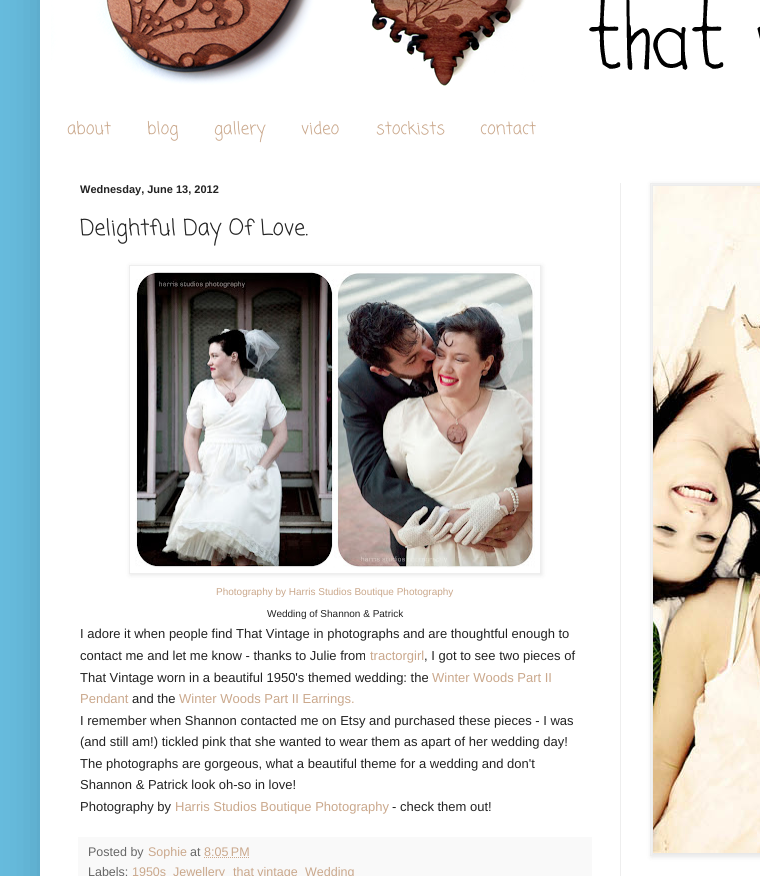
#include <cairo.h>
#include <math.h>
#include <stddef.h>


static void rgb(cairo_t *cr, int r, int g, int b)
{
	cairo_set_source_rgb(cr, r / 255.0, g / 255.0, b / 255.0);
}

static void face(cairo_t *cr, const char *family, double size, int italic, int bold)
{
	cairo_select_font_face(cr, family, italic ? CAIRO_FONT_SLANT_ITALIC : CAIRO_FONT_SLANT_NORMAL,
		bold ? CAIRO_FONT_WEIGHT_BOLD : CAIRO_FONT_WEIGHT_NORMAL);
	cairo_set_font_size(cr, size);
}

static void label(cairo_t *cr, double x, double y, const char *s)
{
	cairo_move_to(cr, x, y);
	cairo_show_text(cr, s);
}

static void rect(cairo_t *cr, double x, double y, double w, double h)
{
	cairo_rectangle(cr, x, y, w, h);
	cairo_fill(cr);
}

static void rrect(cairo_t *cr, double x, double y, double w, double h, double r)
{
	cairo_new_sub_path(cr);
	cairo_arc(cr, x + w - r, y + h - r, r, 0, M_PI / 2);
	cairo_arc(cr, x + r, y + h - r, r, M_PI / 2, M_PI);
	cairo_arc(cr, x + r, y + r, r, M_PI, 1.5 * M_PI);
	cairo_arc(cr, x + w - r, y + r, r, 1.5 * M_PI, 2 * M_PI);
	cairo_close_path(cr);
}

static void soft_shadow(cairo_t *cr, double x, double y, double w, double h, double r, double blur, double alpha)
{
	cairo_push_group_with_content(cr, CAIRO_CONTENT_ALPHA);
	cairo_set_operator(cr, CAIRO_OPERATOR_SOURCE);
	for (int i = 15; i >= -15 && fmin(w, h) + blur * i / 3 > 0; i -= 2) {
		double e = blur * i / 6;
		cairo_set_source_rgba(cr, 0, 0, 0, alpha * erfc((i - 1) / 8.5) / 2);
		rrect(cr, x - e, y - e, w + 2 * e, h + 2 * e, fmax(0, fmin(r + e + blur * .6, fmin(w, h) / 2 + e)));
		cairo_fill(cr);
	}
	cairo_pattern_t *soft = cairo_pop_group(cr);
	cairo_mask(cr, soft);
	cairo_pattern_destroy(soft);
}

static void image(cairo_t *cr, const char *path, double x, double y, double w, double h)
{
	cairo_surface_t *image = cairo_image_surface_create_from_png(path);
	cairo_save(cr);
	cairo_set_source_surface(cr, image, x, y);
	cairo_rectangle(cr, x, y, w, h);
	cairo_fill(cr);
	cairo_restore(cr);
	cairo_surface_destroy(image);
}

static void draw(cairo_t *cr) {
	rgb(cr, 102, 187, 221);
	cairo_paint(cr);
	rgb(cr, 0, 0, 0);
	soft_shadow(cr, 40, -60, 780, 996, 0, 20, 0.15);
	rgb(cr, 255, 255, 255);
	rect(cr, 40, 0, 720, 876);
	image(cr, "image0.png", 51, 0, 709, 86);
	face(cr, "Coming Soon", 17, 0, 0);
	rgb(cr, 202, 168, 140);
	label(cr, 67, 134, "about");
	label(cr, 147, 134, "blog");
	label(cr, 214, 134, "gallery");
	label(cr, 301, 134, "video");
	label(cr, 376, 134, "stockists");
	label(cr, 480, 134, "contact");
	face(cr, "Liberation Sans", 11, 0, 1);
	rgb(cr, 34, 34, 34);
	label(cr, 80, 193, "Wednesday, June 13, 2012");
	face(cr, "Coming Soon", 22, 0, 0);
	label(cr, 80, 235, "Delightful Day Of Love.");
	cairo_save(cr);
	cairo_set_fill_rule(cr, CAIRO_FILL_RULE_EVEN_ODD);
	cairo_new_path(cr);
	cairo_move_to(cr, 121, 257);
	cairo_line_to(cr, 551, 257);
	cairo_line_to(cr, 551, 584);
	cairo_line_to(cr, 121, 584);
	cairo_close_path(cr);
	cairo_move_to(cr, 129, 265);
	cairo_line_to(cr, 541, 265);
	cairo_line_to(cr, 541, 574);
	cairo_line_to(cr, 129, 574);
	cairo_close_path(cr);
	cairo_clip(cr);
	rgb(cr, 0, 0, 0);
	soft_shadow(cr, 130, 266, 412, 309, 0, 2.5, 0.1);
	cairo_restore(cr);
	cairo_rectangle(cr, 129.5, 265.5, 411, 308);
	rgb(cr, 238, 238, 238);
	cairo_set_line_width(cr, 1);
	cairo_stroke(cr);
	image(cr, "image1.png", 135, 271, 400, 297);
	face(cr, "Liberation Sans", 10, 0, 0);
	rgb(cr, 202, 168, 140);
	label(cr, 216, 595, "Photography by Harris Studios Boutique Photography");
	rgb(cr, 34, 34, 34);
	label(cr, 267, 617, "Wedding of Shannon & Patrick");
	face(cr, "Liberation Sans", 13, 0, 0);
	label(cr, 80, 638, "I adore it when people find That Vintage in photographs and are thoughtful enough to");
	label(cr, 80, 660, "contact me and let me know - thanks to Julie from");
	rgb(cr, 202, 168, 140);
	label(cr, 370, 660, "tractorgirl");
	rgb(cr, 34, 34, 34);
	label(cr, 424, 660, ", I got to see two pieces of");
	label(cr, 80, 682, "That Vintage worn in a beautiful 1950's themed wedding: the");
	rgb(cr, 202, 168, 140);
	label(cr, 432, 682, "Winter Woods Part II");
	label(cr, 80, 703, "Pendant");
	rgb(cr, 34, 34, 34);
	label(cr, 132, 703, "and the");
	rgb(cr, 202, 168, 140);
	label(cr, 179, 703, "Winter Woods Part II Earrings.");
	rgb(cr, 34, 34, 34);
	label(cr, 80, 725, "I remember when Shannon contacted me on Etsy and purchased these pieces - I was");
	label(cr, 80, 746, "(and still am!) tickled pink that she wanted to wear them as apart of her wedding day!");
	label(cr, 80, 768, "The photographs are gorgeous, what a beautiful theme for a wedding and don't");
	label(cr, 80, 789, "Shannon & Patrick look oh-so in love!");
	label(cr, 80, 811, "Photography by");
	rgb(cr, 202, 168, 140);
	label(cr, 175, 811, "Harris Studios Boutique Photography");
	rgb(cr, 34, 34, 34);
	label(cr, 392, 811, "- check them out!");
	rgb(cr, 249, 249, 249);
	rect(cr, 78, 837, 514, 39);
	face(cr, "Liberation Sans", 12.5, 0, 0);
	rgb(cr, 102, 102, 102);
	label(cr, 88, 856, "Posted by");
	rgb(cr, 202, 168, 140);
	label(cr, 148, 856, "Sophie");
	rgb(cr, 102, 102, 102);
	label(cr, 190, 856, "at");
	rgb(cr, 202, 168, 140);
	label(cr, 204, 856, "8:05 PM");
	cairo_new_path(cr);
	cairo_move_to(cr, 204, 857.5);
	cairo_line_to(cr, 250, 857.5);
	cairo_set_dash(cr, (double[]){1, 1}, 2, 0);
	cairo_stroke(cr);
	rgb(cr, 102, 102, 102);
	label(cr, 88, 876, "Labels:");
	rgb(cr, 202, 168, 140);
	label(cr, 132, 876, "1950s");
	label(cr, 173, 876, "Jewellery");
	label(cr, 233, 876, "that vintage");
	label(cr, 305, 876, "Wedding");
	rgb(cr, 0, 0, 0);
	soft_shadow(cr, 651, 184, 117, 673, 0, 2.5, 0.1);
	cairo_rectangle(cr, 650.5, 183.5, 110, 672);
	rgb(cr, 238, 238, 238);
	cairo_set_dash(cr, NULL, 0, 0);
	cairo_stroke(cr);
	image(cr, "image2.png", 653, 186, 107, 667);
	rect(cr, 620, 183, 1, 693);
}

int main(void) {
	cairo_surface_t *surface = cairo_image_surface_create(CAIRO_FORMAT_RGB24, 760, 876);
	cairo_t *cr = cairo_create(surface);
	cairo_font_options_t *options = cairo_font_options_create();
	cairo_font_options_set_hint_metrics(options, CAIRO_HINT_METRICS_OFF);
	cairo_font_options_set_hint_style(options, CAIRO_HINT_STYLE_NONE);
	cairo_set_font_options(cr, options);
	cairo_set_miter_limit(cr, 4);
	draw(cr);
	cairo_surface_write_to_png(surface, "render.png");
	cairo_font_options_destroy(options);
	cairo_destroy(cr);
	cairo_surface_destroy(surface);
	return 0;
}
